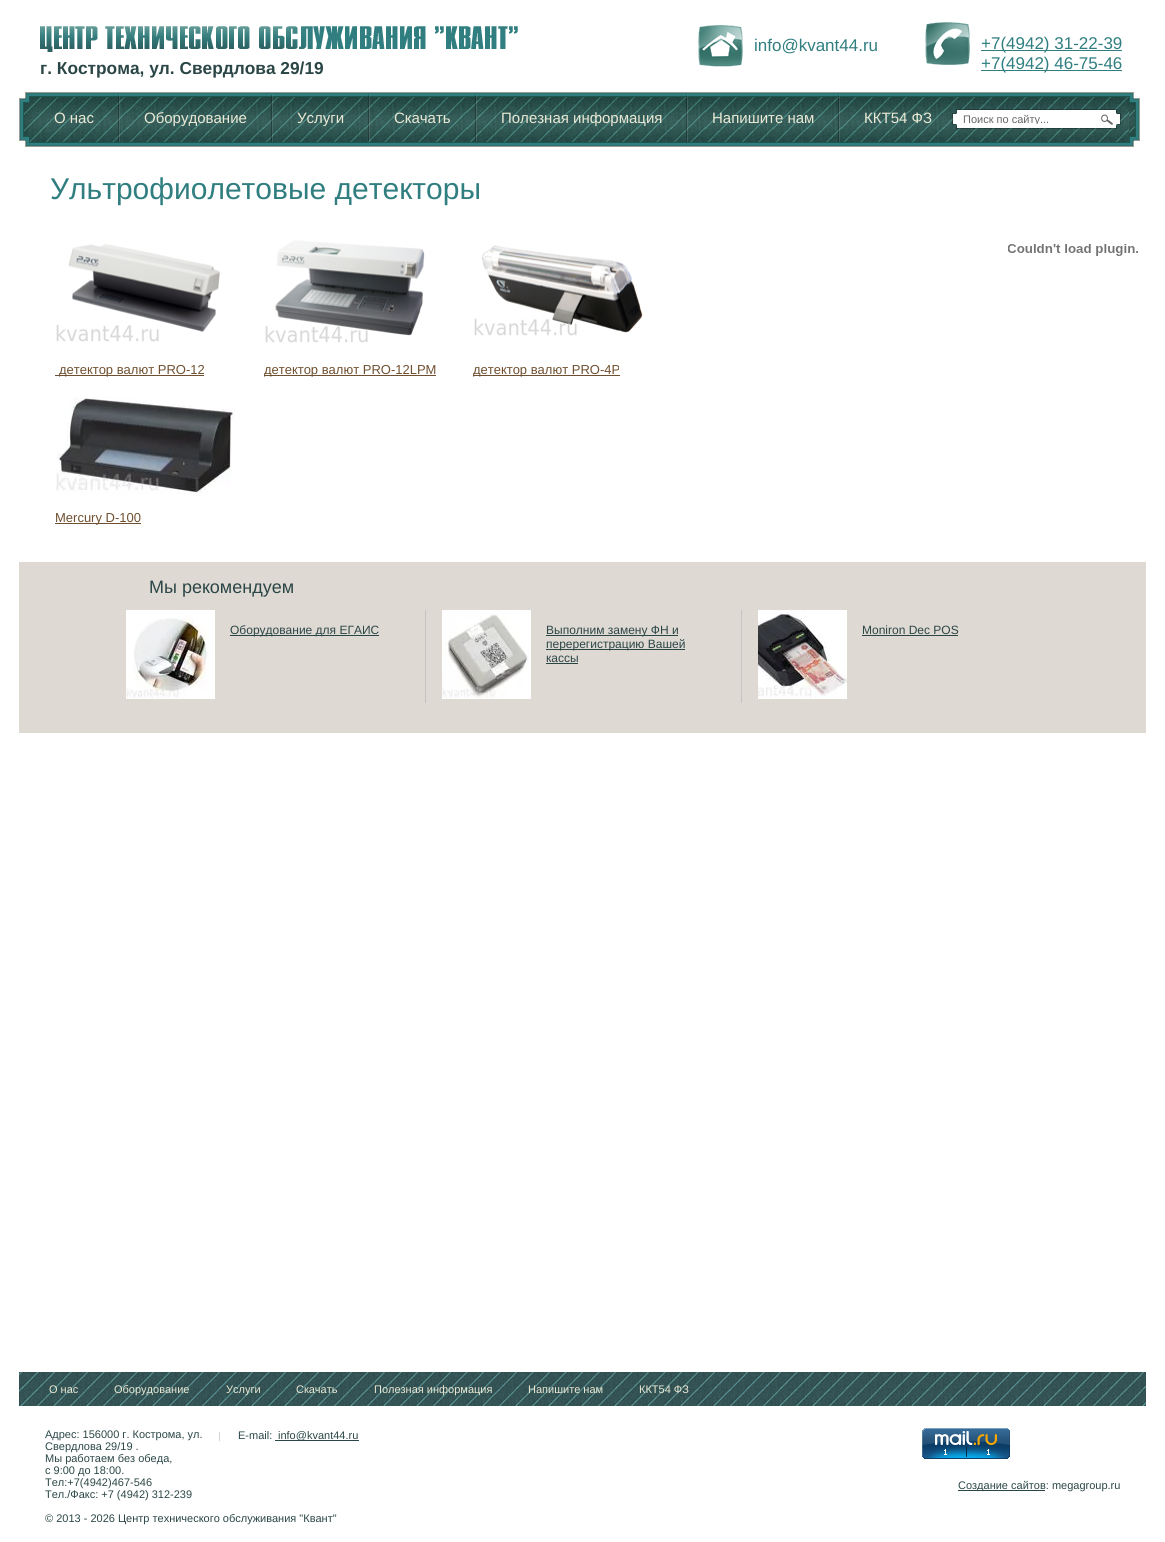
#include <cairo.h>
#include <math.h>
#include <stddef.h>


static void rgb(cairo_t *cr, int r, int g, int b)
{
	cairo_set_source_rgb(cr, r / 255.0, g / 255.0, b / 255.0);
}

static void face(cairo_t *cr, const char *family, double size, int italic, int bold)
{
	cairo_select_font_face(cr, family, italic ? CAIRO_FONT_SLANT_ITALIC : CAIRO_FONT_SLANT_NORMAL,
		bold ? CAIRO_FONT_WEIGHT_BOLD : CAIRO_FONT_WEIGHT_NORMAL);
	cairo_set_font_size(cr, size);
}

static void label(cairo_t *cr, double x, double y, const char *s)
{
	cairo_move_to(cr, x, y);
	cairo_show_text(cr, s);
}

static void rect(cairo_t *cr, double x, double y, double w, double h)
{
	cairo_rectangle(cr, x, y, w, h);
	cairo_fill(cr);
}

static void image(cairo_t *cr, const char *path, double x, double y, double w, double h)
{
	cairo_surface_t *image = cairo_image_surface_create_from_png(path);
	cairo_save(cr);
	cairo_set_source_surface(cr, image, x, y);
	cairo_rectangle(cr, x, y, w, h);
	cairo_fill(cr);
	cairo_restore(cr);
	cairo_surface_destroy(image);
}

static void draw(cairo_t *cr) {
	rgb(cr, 255, 255, 255);
	cairo_paint(cr);
	image(cr, "image0.png", 40, 26, 478, 26);
	image(cr, "image1.png", 698, 25, 45, 42);
	face(cr, "Liberation Sans", 17, 0, 0);
	rgb(cr, 48, 126, 128);
	label(cr, 754, 51, "info@kvant44.ru");
	image(cr, "image2.png", 925, 22, 45, 43);
	rect(cr, 981, 50, 141, 1);
	label(cr, 981, 49, "+7(4942) 31-22-39");
	rect(cr, 981, 70, 141, 1);
	label(cr, 981, 69, "+7(4942) 46-75-46");
	face(cr, "Liberation Sans", 17.3, 0, 1);
	rgb(cr, 43, 70, 70);
	label(cr, 40, 74, "г. Кострома, ул. Свердлова 29/19");
	image(cr, "image3.png", 19, 92, 74, 55);
	image(cr, "image4.png", 93, 92, 1041, 55);
	image(cr, "image5.png", 1129, 93, 11, 53);
	face(cr, "Liberation Sans", 15, 0, 0);
	rgb(cr, 234, 233, 213);
	label(cr, 54, 123, "О нас");
	image(cr, "image6.png", 118, 95, 2, 47);
	label(cr, 144, 123, "Оборудование");
	image(cr, "image7.png", 271, 95, 2, 47);
	label(cr, 297, 123, "Услуги");
	image(cr, "image8.png", 368, 95, 2, 47);
	label(cr, 394, 123, "Скачать");
	image(cr, "image7.png", 475, 95, 2, 47);
	label(cr, 501, 123, "Полезная информация");
	image(cr, "image9.png", 686, 95, 2, 47);
	label(cr, 712, 123, "Напишите нам");
	image(cr, "image10.png", 838, 95, 2, 47);
	label(cr, 864, 123, "ККТ54 ФЗ");
	image(cr, "image11.png", 952, 109, 169, 20);
	cairo_save(cr);
	cairo_rectangle(cr, 963, 113, 133, 11);
	cairo_clip(cr);
	face(cr, "Liberation Sans", 11, 0, 0);
	rgb(cr, 102, 102, 102);
	label(cr, 963, 123, "Поиск по сайту...");
	cairo_restore(cr);
	image(cr, "image12.png", 1008, 244, 130, 12);
	face(cr, "Liberation Sans", 30, 0, 0);
	rgb(cr, 48, 126, 128);
	label(cr, 50, 199, "Ультрофиолетовые детекторы");
	image(cr, "image13.png", 56, 244, 164, 98);
	image(cr, "image14.png", 265, 240, 160, 103);
	image(cr, "image15.png", 474, 245, 169, 91);
	rgb(cr, 111, 79, 47);
	rect(cr, 55, 375, 149, 1);
	face(cr, "Liberation Sans", 13, 0, 0);
	label(cr, 59, 374, "детектор валют PRO-12");
	rect(cr, 264, 375, 172, 1);
	label(cr, 264, 374, "детектор валют PRO-12LPM");
	rect(cr, 473, 375, 147, 1);
	label(cr, 473, 374, "детектор валют PRO-4P");
	image(cr, "image16.png", 56, 397, 179, 97);
	rect(cr, 55, 523, 86, 1);
	label(cr, 55, 522, "Mercury D-100");
	rgb(cr, 223, 217, 212);
	rect(cr, 19, 562, 1127, 171);
	face(cr, "Liberation Sans", 18, 0, 0);
	rgb(cr, 43, 70, 70);
	label(cr, 149, 593, "Мы рекомендуем");
	image(cr, "image17.png", 126, 610, 89, 89);
	rect(cr, 230, 635, 149, 1);
	face(cr, "Liberation Sans", 12, 0, 0);
	label(cr, 230, 634, "Оборудование для ЕГАИС");
	rgb(cr, 200, 195, 191);
	rect(cr, 425, 610, 1, 93);
	image(cr, "image18.png", 442, 610, 89, 89);
	rgb(cr, 43, 70, 70);
	rect(cr, 546, 635, 132, 1);
	label(cr, 546, 634, "Выполним замену ФН и");
	rect(cr, 546, 649, 139, 1);
	label(cr, 546, 648, "перерегистрацию Вашей");
	label(cr, 546, 662, "кассы");
	rect(cr, 546, 663, 32, 1);
	rgb(cr, 200, 195, 191);
	rect(cr, 741, 610, 1, 93);
	image(cr, "image19.png", 758, 610, 89, 89);
	rgb(cr, 43, 70, 70);
	label(cr, 862, 634, "Moniron Dec POS");
	rect(cr, 862, 635, 96, 1);
	image(cr, "image20.png", 19, 1372, 1127, 34);
	face(cr, "Liberation Sans", 11, 0, 0);
	rgb(cr, 234, 233, 213);
	label(cr, 49, 1393, "О нас");
	label(cr, 114, 1393, "Оборудование");
	label(cr, 226, 1393, "Услуги");
	label(cr, 296, 1393, "Скачать");
	label(cr, 374, 1393, "Полезная информация");
	label(cr, 528, 1393, "Напишите нам");
	label(cr, 639, 1393, "ККТ54 ФЗ");
	rgb(cr, 43, 70, 70);
	label(cr, 45, 1438, "Адрес: 156000 г. Кострома, ул.");
	label(cr, 45, 1450, "Свердлова 29/19 .");
	label(cr, 45, 1462, "Мы работаем без обеда,");
	label(cr, 45, 1474, "с 9:00 до 18:00.");
	label(cr, 45, 1486, "Тел:+7(4942)467-546");
	label(cr, 45, 1498, "Тел./Факс: +7 (4942) 312-239");
	rgb(cr, 215, 211, 208);
	rect(cr, 219, 1432, 1, 9);
	rgb(cr, 43, 70, 70);
	label(cr, 238, 1439, "E-mail:");
	rect(cr, 275, 1440, 84, 1);
	label(cr, 278, 1439, "info@kvant44.ru");
	image(cr, "image21.png", 922, 1428, 88, 31);
	rect(cr, 958, 1490, 87, 1);
	label(cr, 958, 1489, "Создание сайтов: megagroup.ru");
	label(cr, 45, 1522, "© 2013 - 2026 Центр технического обслуживания \"Квант\"");
}

int main(void) {
	cairo_surface_t *surface = cairo_image_surface_create(CAIRO_FORMAT_RGB24, 1165, 1542);
	cairo_t *cr = cairo_create(surface);
	cairo_font_options_t *options = cairo_font_options_create();
	cairo_font_options_set_hint_metrics(options, CAIRO_HINT_METRICS_OFF);
	cairo_font_options_set_hint_style(options, CAIRO_HINT_STYLE_NONE);
	cairo_set_font_options(cr, options);
	cairo_set_miter_limit(cr, 4);
	draw(cr);
	cairo_surface_write_to_png(surface, "render.png");
	cairo_font_options_destroy(options);
	cairo_destroy(cr);
	cairo_surface_destroy(surface);
	return 0;
}
